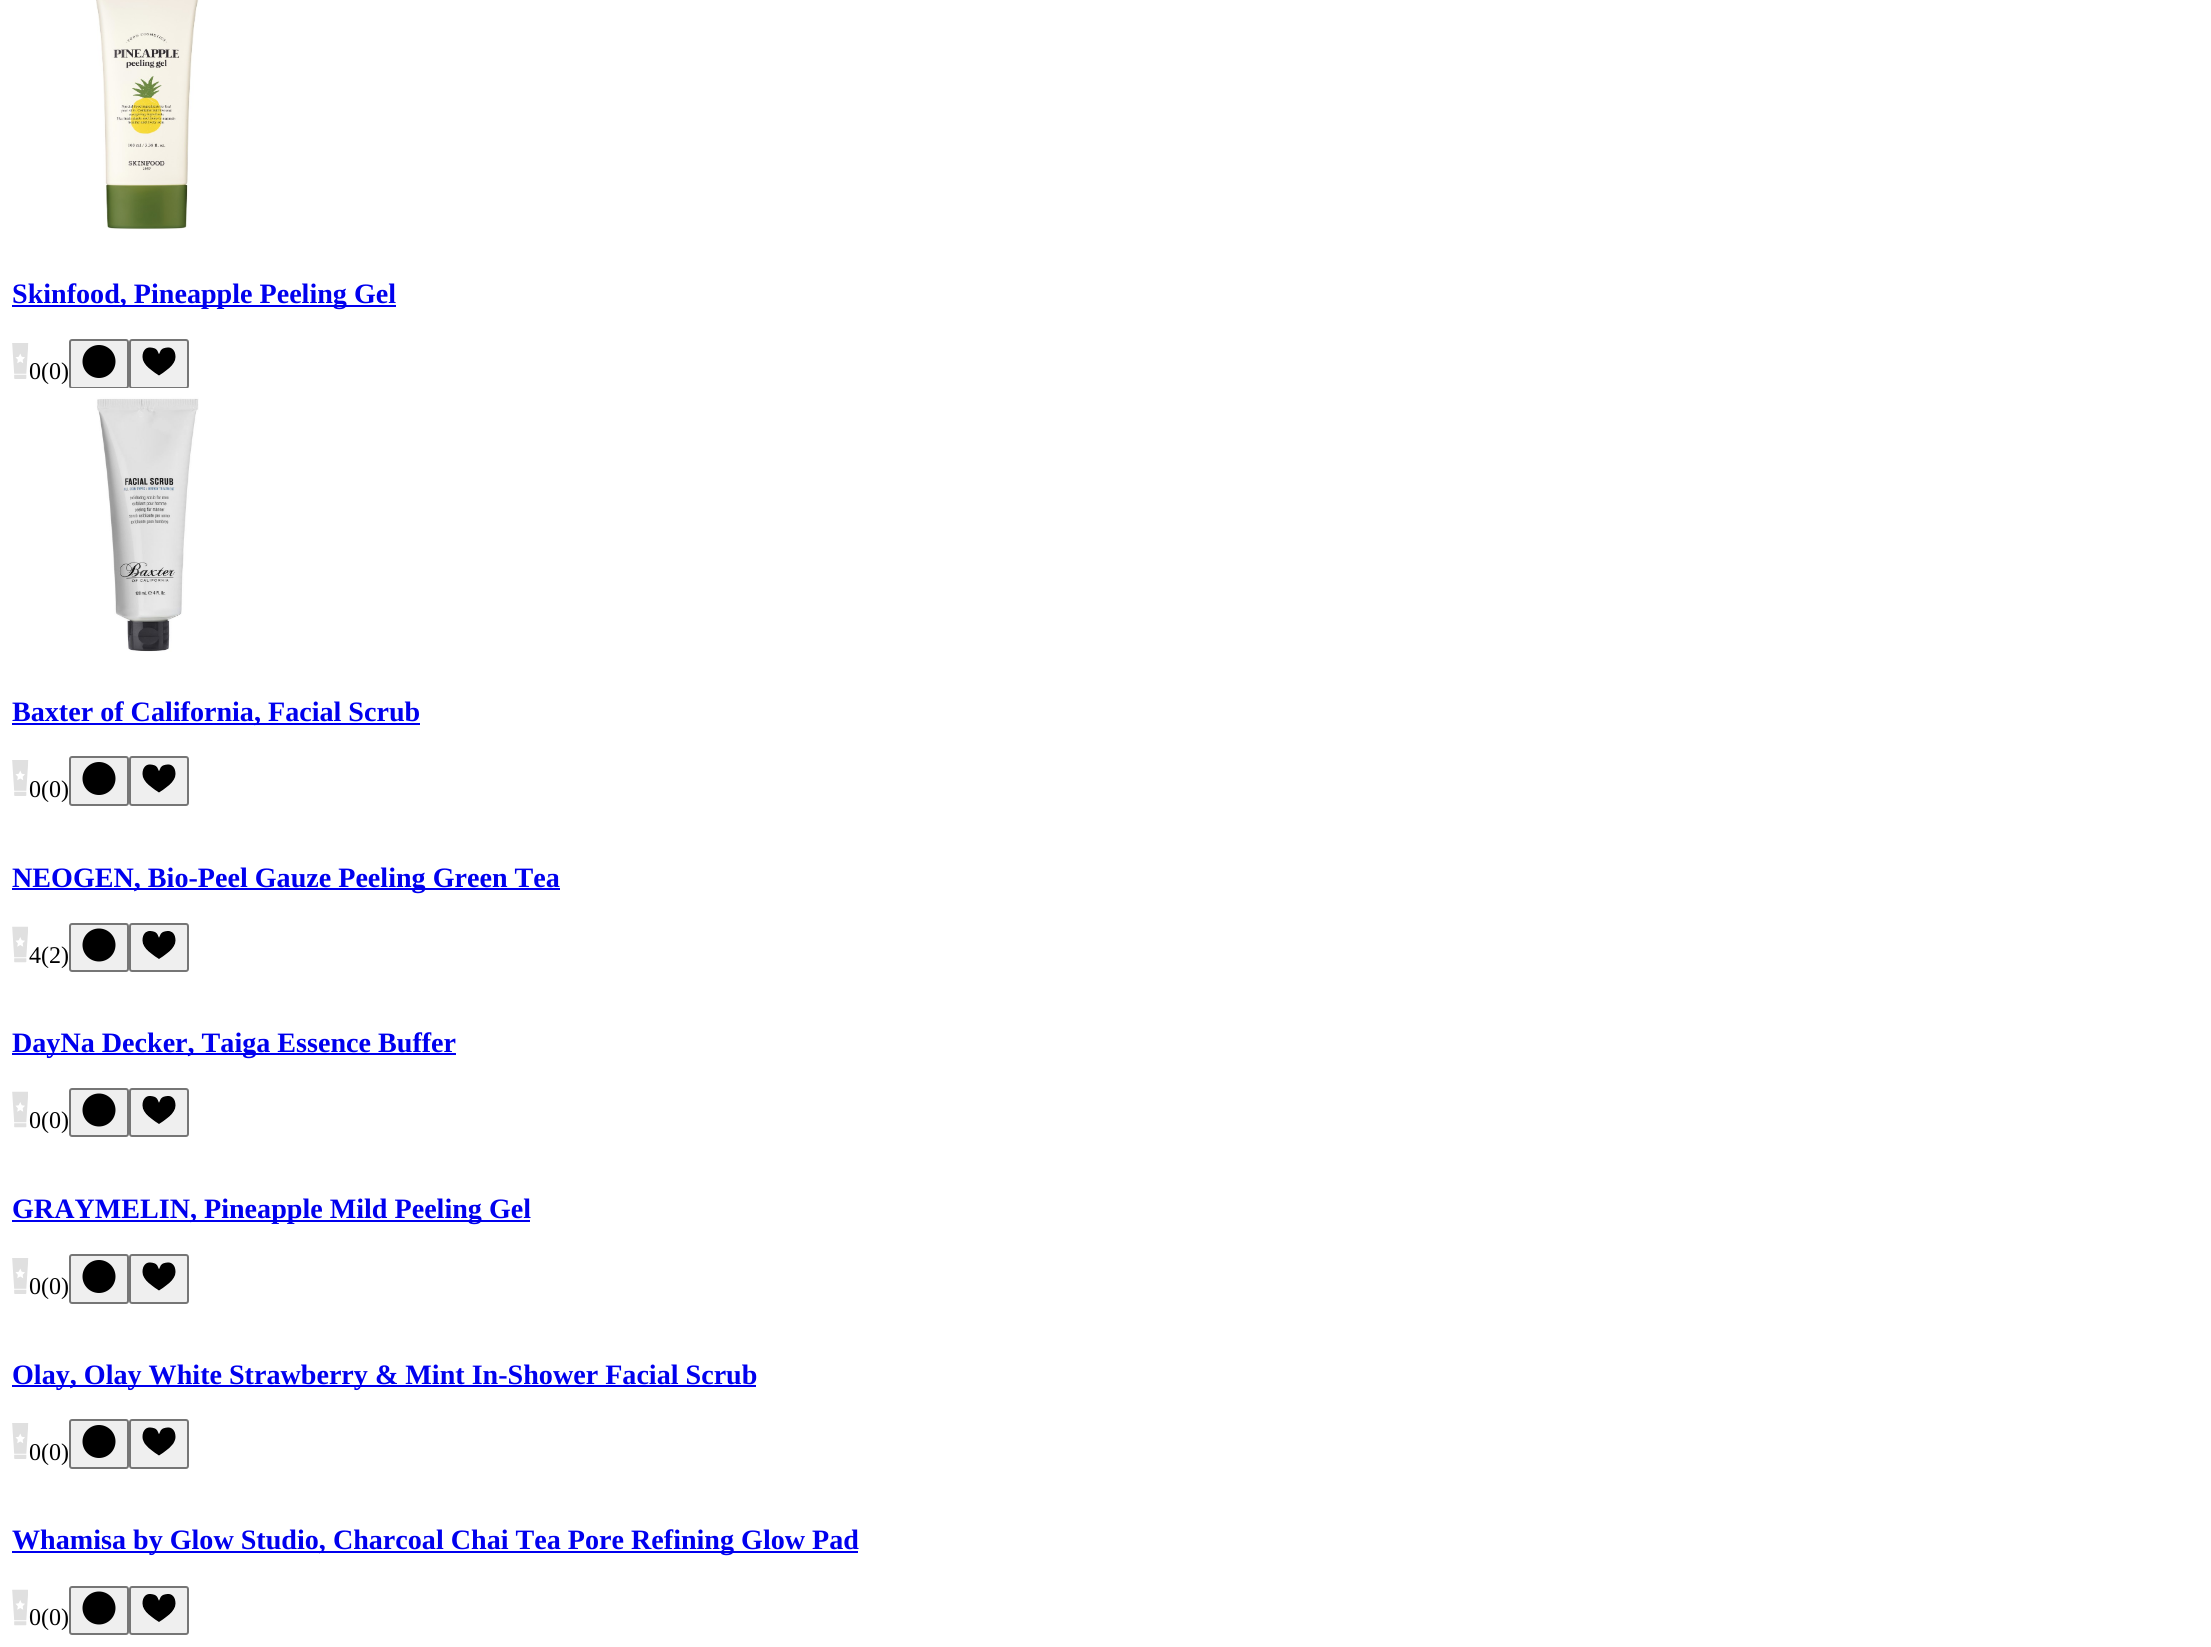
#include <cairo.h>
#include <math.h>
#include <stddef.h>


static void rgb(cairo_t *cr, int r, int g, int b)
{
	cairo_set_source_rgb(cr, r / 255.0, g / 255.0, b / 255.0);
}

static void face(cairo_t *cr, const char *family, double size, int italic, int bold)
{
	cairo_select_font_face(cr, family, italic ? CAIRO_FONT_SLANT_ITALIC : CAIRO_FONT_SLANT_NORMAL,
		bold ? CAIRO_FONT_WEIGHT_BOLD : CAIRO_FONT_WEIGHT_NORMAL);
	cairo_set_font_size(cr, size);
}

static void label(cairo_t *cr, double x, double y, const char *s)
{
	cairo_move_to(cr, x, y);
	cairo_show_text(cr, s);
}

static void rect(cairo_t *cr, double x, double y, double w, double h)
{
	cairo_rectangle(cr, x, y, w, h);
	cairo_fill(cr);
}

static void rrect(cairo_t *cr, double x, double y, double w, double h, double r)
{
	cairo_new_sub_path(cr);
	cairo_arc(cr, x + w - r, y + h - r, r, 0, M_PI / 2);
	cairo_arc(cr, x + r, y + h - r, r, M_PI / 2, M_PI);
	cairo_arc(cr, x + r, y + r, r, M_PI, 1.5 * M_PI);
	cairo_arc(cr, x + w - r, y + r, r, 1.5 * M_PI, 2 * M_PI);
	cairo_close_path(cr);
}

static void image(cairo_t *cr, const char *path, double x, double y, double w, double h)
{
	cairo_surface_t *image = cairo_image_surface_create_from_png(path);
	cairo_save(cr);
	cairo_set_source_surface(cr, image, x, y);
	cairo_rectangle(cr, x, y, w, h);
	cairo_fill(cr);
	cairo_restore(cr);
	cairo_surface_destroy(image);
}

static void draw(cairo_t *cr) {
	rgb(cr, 255, 255, 255);
	cairo_paint(cr);
	image(cr, "image0.png", 96, 0, 103, 230);
	rgb(cr, 0, 0, 238);
	rect(cr, 12, 305, 384, 2);
	face(cr, "Liberation Serif", 28.1, 0, 1);
	label(cr, 12, 303, "Skinfood, Pineapple Peeling Gel");
	image(cr, "image1.png", 12, 343, 17, 36);
	face(cr, "Liberation Serif", 24, 0, 0);
	rgb(cr, 0, 0, 0);
	label(cr, 29, 379, "0(0)");
	rgb(cr, 239, 239, 239);
	rrect(cr, 70, 340, 58, 48, 2);
	cairo_fill_preserve(cr);
	rgb(cr, 118, 118, 118);
	cairo_stroke(cr);
	image(cr, "image2.png", 82, 345, 34, 33);
	rgb(cr, 239, 239, 239);
	rrect(cr, 130, 340, 58, 48, 2);
	cairo_fill_preserve(cr);
	rgb(cr, 118, 118, 118);
	cairo_stroke(cr);
	image(cr, "image3.png", 142, 347, 34, 29);
	image(cr, "image4.png", 70, 388, 129, 264);
	rgb(cr, 0, 0, 238);
	rect(cr, 12, 723, 408, 2);
	face(cr, "Liberation Serif", 28.1, 0, 1);
	label(cr, 12, 721, "Baxter of California, Facial Scrub");
	image(cr, "image1.png", 12, 760, 17, 36);
	face(cr, "Liberation Serif", 24, 0, 0);
	rgb(cr, 0, 0, 0);
	label(cr, 29, 797, "0(0)");
	rgb(cr, 239, 239, 239);
	rrect(cr, 70, 757, 58, 48, 2);
	cairo_fill_preserve(cr);
	rgb(cr, 118, 118, 118);
	cairo_stroke(cr);
	image(cr, "image2.png", 82, 762, 34, 33);
	rgb(cr, 239, 239, 239);
	rrect(cr, 130, 757, 58, 48, 2);
	cairo_fill_preserve(cr);
	rgb(cr, 118, 118, 118);
	cairo_stroke(cr);
	image(cr, "image3.png", 142, 764, 34, 29);
	rgb(cr, 0, 0, 238);
	rect(cr, 12, 888, 548, 2);
	face(cr, "Liberation Serif", 28.1, 0, 1);
	label(cr, 12, 887, "NEOGEN, Bio-Peel Gauze Peeling Green Tea");
	image(cr, "image5.png", 12, 926, 16, 37);
	face(cr, "Liberation Serif", 24, 0, 0);
	rgb(cr, 0, 0, 0);
	label(cr, 29, 963, "4(2)");
	rgb(cr, 239, 239, 239);
	rrect(cr, 70, 924, 58, 47, 2);
	cairo_fill_preserve(cr);
	rgb(cr, 118, 118, 118);
	cairo_stroke(cr);
	image(cr, "image6.png", 82, 928, 34, 34);
	rgb(cr, 239, 239, 239);
	rrect(cr, 130, 924, 58, 47, 2);
	cairo_fill_preserve(cr);
	rgb(cr, 118, 118, 118);
	cairo_stroke(cr);
	image(cr, "image7.png", 142, 931, 34, 28);
	rgb(cr, 0, 0, 238);
	rect(cr, 12, 1053, 444, 2);
	face(cr, "Liberation Serif", 28.1, 0, 1);
	label(cr, 12, 1052, "DayNa Decker, Taiga Essence Buffer");
	image(cr, "image8.png", 12, 1091, 16, 37);
	face(cr, "Liberation Serif", 24, 0, 0);
	rgb(cr, 0, 0, 0);
	label(cr, 29, 1128, "0(0)");
	rgb(cr, 239, 239, 239);
	rrect(cr, 70, 1089, 58, 47, 2);
	cairo_fill_preserve(cr);
	rgb(cr, 118, 118, 118);
	cairo_stroke(cr);
	image(cr, "image6.png", 82, 1093, 34, 34);
	rgb(cr, 239, 239, 239);
	rrect(cr, 130, 1089, 58, 47, 2);
	cairo_fill_preserve(cr);
	rgb(cr, 118, 118, 118);
	cairo_stroke(cr);
	image(cr, "image9.png", 142, 1096, 34, 28);
	rgb(cr, 0, 0, 238);
	rect(cr, 12, 1220, 518, 2);
	face(cr, "Liberation Serif", 28.1, 0, 1);
	label(cr, 12, 1218, "GRAYMELIN, Pineapple Mild Peeling Gel");
	image(cr, "image1.png", 12, 1258, 17, 36);
	face(cr, "Liberation Serif", 24, 0, 0);
	rgb(cr, 0, 0, 0);
	label(cr, 29, 1294, "0(0)");
	rgb(cr, 239, 239, 239);
	rrect(cr, 70, 1255, 58, 48, 2);
	cairo_fill_preserve(cr);
	rgb(cr, 118, 118, 118);
	cairo_stroke(cr);
	image(cr, "image2.png", 82, 1260, 34, 33);
	rgb(cr, 239, 239, 239);
	rrect(cr, 130, 1255, 58, 48, 2);
	cairo_fill_preserve(cr);
	rgb(cr, 118, 118, 118);
	cairo_stroke(cr);
	image(cr, "image3.png", 142, 1262, 34, 29);
	rgb(cr, 0, 0, 238);
	rect(cr, 12, 1385, 744, 2);
	face(cr, "Liberation Serif", 28.1, 0, 1);
	label(cr, 12, 1384, "Olay, Olay White Strawberry & Mint In-Shower Facial Scrub");
	image(cr, "image10.png", 12, 1423, 17, 36);
	face(cr, "Liberation Serif", 24, 0, 0);
	rgb(cr, 0, 0, 0);
	label(cr, 29, 1460, "0(0)");
	rgb(cr, 239, 239, 239);
	rrect(cr, 70, 1420, 58, 48, 2);
	cairo_fill_preserve(cr);
	rgb(cr, 118, 118, 118);
	cairo_stroke(cr);
	image(cr, "image2.png", 82, 1425, 34, 33);
	rgb(cr, 239, 239, 239);
	rrect(cr, 130, 1420, 58, 48, 2);
	cairo_fill_preserve(cr);
	rgb(cr, 118, 118, 118);
	cairo_stroke(cr);
	image(cr, "image11.png", 142, 1427, 34, 29);
	rgb(cr, 0, 0, 238);
	rect(cr, 12, 1551, 846, 2);
	face(cr, "Liberation Serif", 28.1, 0, 1);
	label(cr, 12, 1549, "Whamisa by Glow Studio, Charcoal Chai Tea Pore Refining Glow Pad");
	image(cr, "image8.png", 12, 1589, 16, 37);
	face(cr, "Liberation Serif", 24, 0, 0);
	rgb(cr, 0, 0, 0);
	label(cr, 29, 1625, "0(0)");
	rgb(cr, 239, 239, 239);
	rrect(cr, 70, 1587, 58, 47, 2);
	cairo_fill_preserve(cr);
	rgb(cr, 118, 118, 118);
	cairo_stroke(cr);
	image(cr, "image6.png", 82, 1591, 34, 34);
	rgb(cr, 239, 239, 239);
	rrect(cr, 130, 1587, 58, 47, 2);
	cairo_fill_preserve(cr);
	rgb(cr, 118, 118, 118);
	cairo_stroke(cr);
	image(cr, "image9.png", 142, 1594, 34, 28);
}

int main(void) {
	cairo_surface_t *surface = cairo_image_surface_create(CAIRO_FORMAT_RGB24, 2211, 1647);
	cairo_t *cr = cairo_create(surface);
	cairo_font_options_t *options = cairo_font_options_create();
	cairo_font_options_set_hint_metrics(options, CAIRO_HINT_METRICS_OFF);
	cairo_font_options_set_hint_style(options, CAIRO_HINT_STYLE_NONE);
	cairo_set_font_options(cr, options);
	cairo_set_miter_limit(cr, 4);
	draw(cr);
	cairo_surface_write_to_png(surface, "render.png");
	cairo_font_options_destroy(options);
	cairo_destroy(cr);
	cairo_surface_destroy(surface);
	return 0;
}
